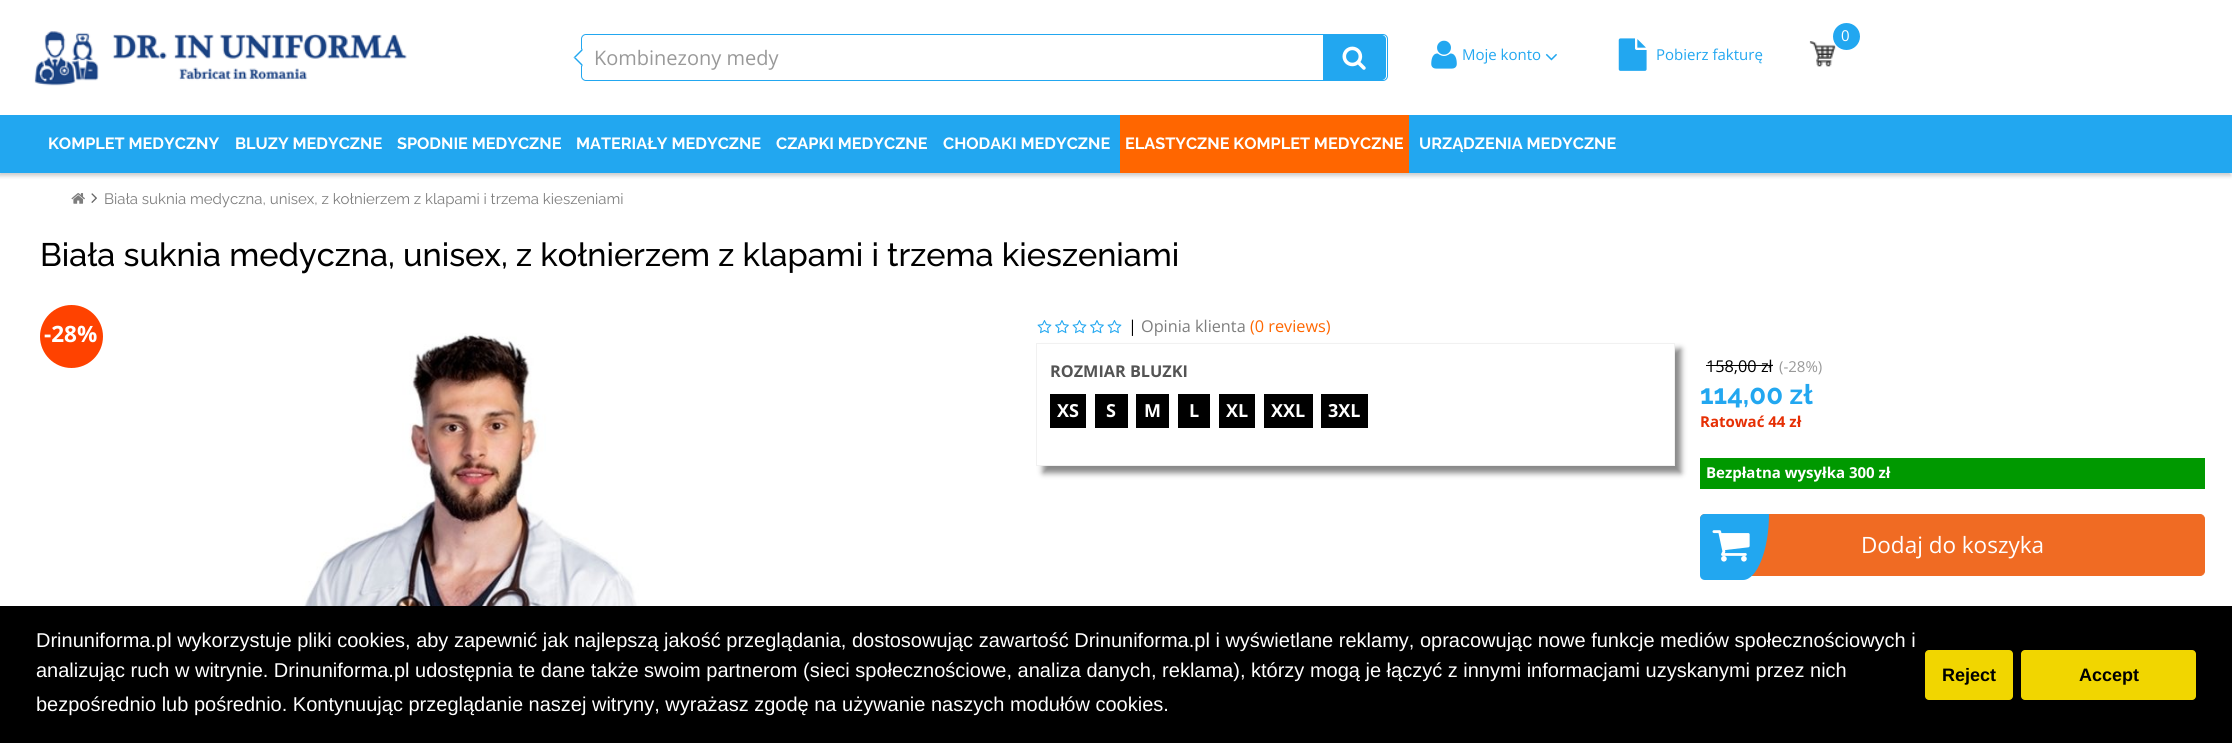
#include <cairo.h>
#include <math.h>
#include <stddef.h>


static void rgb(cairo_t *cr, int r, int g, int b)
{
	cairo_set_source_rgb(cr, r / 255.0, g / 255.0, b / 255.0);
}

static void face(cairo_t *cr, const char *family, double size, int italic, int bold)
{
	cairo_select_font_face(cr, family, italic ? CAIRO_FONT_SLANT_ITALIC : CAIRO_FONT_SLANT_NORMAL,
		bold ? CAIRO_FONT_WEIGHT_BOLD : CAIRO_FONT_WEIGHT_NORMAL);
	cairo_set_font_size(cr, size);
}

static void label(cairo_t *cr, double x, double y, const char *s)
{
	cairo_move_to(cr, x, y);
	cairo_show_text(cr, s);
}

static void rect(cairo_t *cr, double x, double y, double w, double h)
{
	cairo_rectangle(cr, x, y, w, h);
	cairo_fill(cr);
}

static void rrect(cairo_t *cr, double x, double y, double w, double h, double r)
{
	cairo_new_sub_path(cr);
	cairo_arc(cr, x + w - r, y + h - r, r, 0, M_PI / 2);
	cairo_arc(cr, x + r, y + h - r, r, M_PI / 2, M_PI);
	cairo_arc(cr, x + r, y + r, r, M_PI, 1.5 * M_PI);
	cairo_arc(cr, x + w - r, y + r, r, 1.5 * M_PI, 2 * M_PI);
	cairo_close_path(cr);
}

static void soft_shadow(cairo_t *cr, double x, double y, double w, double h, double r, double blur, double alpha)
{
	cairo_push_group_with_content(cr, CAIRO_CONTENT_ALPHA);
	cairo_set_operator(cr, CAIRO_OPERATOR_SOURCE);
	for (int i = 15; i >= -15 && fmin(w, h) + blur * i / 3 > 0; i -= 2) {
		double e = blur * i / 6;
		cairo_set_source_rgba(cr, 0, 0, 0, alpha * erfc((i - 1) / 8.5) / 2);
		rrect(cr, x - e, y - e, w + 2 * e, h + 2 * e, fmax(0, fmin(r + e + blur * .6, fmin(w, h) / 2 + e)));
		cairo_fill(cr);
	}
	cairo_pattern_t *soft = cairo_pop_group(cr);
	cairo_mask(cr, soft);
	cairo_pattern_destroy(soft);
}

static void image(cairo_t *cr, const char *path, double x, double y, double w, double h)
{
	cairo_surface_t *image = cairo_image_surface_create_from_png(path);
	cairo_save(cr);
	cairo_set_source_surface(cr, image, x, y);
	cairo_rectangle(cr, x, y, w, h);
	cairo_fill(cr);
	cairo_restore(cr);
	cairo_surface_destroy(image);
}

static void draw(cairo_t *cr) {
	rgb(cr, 255, 255, 255);
	cairo_paint(cr);
	image(cr, "image0.png", 34, 31, 373, 55);
	rrect(cr, 581.5, 34.5, 806, 46, 4.5);
	rgb(cr, 34, 167, 240);
	cairo_set_line_width(cr, 1);
	cairo_stroke(cr);
	rgb(cr, 255, 255, 255);
	cairo_new_path(cr);
	cairo_move_to(cr, 573.5, 57.5);
	cairo_line_to(cr, 582.5, 48.5);
	cairo_line_to(cr, 591, 57.5);
	cairo_line_to(cr, 582.5, 66.5);
	cairo_close_path(cr);
	cairo_fill(cr);
	rgb(cr, 34, 167, 240);
	cairo_new_path(cr);
	cairo_move_to(cr, 573.5, 57.5);
	cairo_line_to(cr, 582.5, 48.5);
	cairo_line_to(cr, 582.5, 50.5);
	cairo_line_to(cr, 575.5, 57.5);
	cairo_close_path(cr);
	cairo_fill(cr);
	cairo_new_path(cr);
	cairo_move_to(cr, 582.5, 66.5);
	cairo_line_to(cr, 573.5, 57.5);
	cairo_line_to(cr, 575.5, 57.5);
	cairo_line_to(cr, 582.5, 64.5);
	cairo_close_path(cr);
	cairo_fill(cr);
	rgb(cr, 255, 255, 255);
	cairo_new_path(cr);
	cairo_move_to(cr, 587, 35);
	cairo_line_to(cr, 1324, 35);
	cairo_line_to(cr, 1324, 80);
	cairo_line_to(cr, 587, 80);
	cairo_curve_to(cr, 585, 80, 583, 78, 583, 76);
	cairo_line_to(cr, 583, 39);
	cairo_curve_to(cr, 583, 37, 585, 35, 587, 35);
	cairo_close_path(cr);
	cairo_fill(cr);
	face(cr, "Open Sans", 20, 0, 0);
	rgb(cr, 153, 153, 153);
	label(cr, 594, 65, "Kombinezony medy");
	rgb(cr, 34, 167, 240);
	cairo_new_path(cr);
	cairo_move_to(cr, 1323, 35);
	cairo_line_to(cr, 1382, 35);
	cairo_curve_to(cr, 1384, 35, 1386, 37, 1386, 39);
	cairo_line_to(cr, 1386, 76);
	cairo_curve_to(cr, 1386, 78, 1384, 80, 1382, 80);
	cairo_line_to(cr, 1323, 80);
	cairo_close_path(cr);
	cairo_fill(cr);
	image(cr, "image1.png", 1342, 46, 24, 24);
	image(cr, "image2.png", 1809, 41, 27, 26);
	cairo_arc(cr, 1846.5, 36.5, 13.5, 0, 2 * M_PI);
	cairo_fill(cr);
	face(cr, "Open Sans", 15, 0, 0);
	rgb(cr, 255, 255, 255);
	label(cr, 1841, 41, "0");
	image(cr, "image3.png", 1431, 40, 26, 29);
	rgb(cr, 34, 167, 240);
	label(cr, 1462, 60, "Moje konto");
	image(cr, "image4.png", 1545, 53, 12, 8);
	image(cr, "image5.png", 1618, 38, 29, 33);
	label(cr, 1656, 60, "Pobierz fakturę");
	rgb(cr, 0, 0, 0);
	soft_shadow(cr, -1, 119, 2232, 57, 0, 2, 0.2);
	rgb(cr, 34, 167, 240);
	rect(cr, 0, 115, 2232, 58);
	face(cr, "Raleway", 16.25, 0, 1);
	rgb(cr, 255, 255, 255);
	label(cr, 48, 149, "KOMPLET MEDYCZNY");
	label(cr, 235, 149, "BLUZY MEDYCZNE");
	label(cr, 397, 149, "SPODNIE MEDYCZNE");
	label(cr, 576, 149, "MATERIAŁY MEDYCZNE");
	label(cr, 776, 149, "CZAPKI MEDYCZNE");
	label(cr, 943, 149, "CHODAKI MEDYCZNE");
	rgb(cr, 255, 102, 0);
	rect(cr, 1120, 115, 289, 58);
	rgb(cr, 255, 255, 255);
	label(cr, 1125, 149, "ELASTYCZNE KOMPLET MEDYCZNE");
	label(cr, 1419, 149, "URZĄDZENIA MEDYCZNE");
	image(cr, "image6.png", 71, 193, 14, 11);
	image(cr, "image7.png", 91, 193, 6, 10);
	face(cr, "Raleway", 15, 0, 0);
	rgb(cr, 125, 125, 125);
	label(cr, 104, 204, "Biała suknia medyczna, unisex, z kołnierzem z klapami i trzema kieszeniami");
	face(cr, "Raleway Medium", 32.5, 0, 0);
	rgb(cr, 0, 0, 0);
	label(cr, 40, 266, "Biała suknia medyczna, unisex, z kołnierzem z klapami i trzema kieszeniami");
	rgb(cr, 255, 66, 0);
	cairo_new_path(cr);
	cairo_arc(cr, 71.5, 336.5, 31.5, 0, 2 * M_PI);
	cairo_fill(cr);
	face(cr, "Open Sans", 22.5, 0, 1);
	rgb(cr, 255, 255, 255);
	label(cr, 44, 342, "-28%");
	image(cr, "image8.png", 273, 333, 380, 273);
	image(cr, "image9.png", 1037, 320, 15, 14);
	image(cr, "image10.png", 1055, 320, 14, 14);
	image(cr, "image9.png", 1072, 320, 15, 14);
	image(cr, "image10.png", 1090, 320, 14, 14);
	image(cr, "image9.png", 1107, 320, 15, 14);
	face(cr, "Open Sans", 16.25, 0, 0);
	rgb(cr, 0, 0, 0);
	label(cr, 1128, 332, "|");
	rgb(cr, 125, 125, 125);
	label(cr, 1141, 332, "Opinia klienta");
	rgb(cr, 255, 102, 0);
	label(cr, 1250, 332, "(0 reviews)");
	cairo_save(cr);
	cairo_set_fill_rule(cr, CAIRO_FILL_RULE_EVEN_ODD);
	cairo_new_path(cr);
	cairo_move_to(cr, 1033, 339);
	cairo_line_to(cr, 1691, 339);
	cairo_line_to(cr, 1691, 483);
	cairo_line_to(cr, 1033, 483);
	cairo_close_path(cr);
	cairo_move_to(cr, 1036, 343);
	cairo_line_to(cr, 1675, 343);
	cairo_line_to(cr, 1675, 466);
	cairo_line_to(cr, 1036, 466);
	cairo_close_path(cr);
	cairo_clip(cr);
	rgb(cr, 136, 136, 136);
	soft_shadow(cr, 1043, 349, 638, 124, 0, 3, 1);
	cairo_restore(cr);
	cairo_rectangle(cr, 1036.5, 343.5, 638, 122);
	rgb(cr, 241, 241, 241);
	cairo_stroke(cr);
	face(cr, "Open Sans", 16.25, 0, 1);
	rgb(cr, 84, 84, 84);
	label(cr, 1050, 377, "ROZMIAR BLUZKI");
	rgb(cr, 0, 0, 0);
	rect(cr, 1050, 394, 36, 34);
	face(cr, "Open Sans", 18, 0, 1);
	rgb(cr, 255, 255, 255);
	label(cr, 1057, 417, "XS");
	rgb(cr, 0, 0, 0);
	rect(cr, 1095, 394, 33, 34);
	rgb(cr, 255, 255, 255);
	label(cr, 1106, 417, "S");
	rgb(cr, 0, 0, 0);
	rect(cr, 1136, 394, 33, 34);
	rgb(cr, 255, 255, 255);
	label(cr, 1144, 417, "M");
	rgb(cr, 0, 0, 0);
	rect(cr, 1178, 394, 32, 34);
	rgb(cr, 255, 255, 255);
	label(cr, 1189, 417, "L");
	rgb(cr, 0, 0, 0);
	rect(cr, 1219, 394, 36, 34);
	rgb(cr, 255, 255, 255);
	label(cr, 1226, 417, "XL");
	rgb(cr, 0, 0, 0);
	rect(cr, 1264, 394, 49, 34);
	rgb(cr, 255, 255, 255);
	label(cr, 1271, 417, "XXL");
	rgb(cr, 0, 0, 0);
	rect(cr, 1321, 394, 47, 34);
	rgb(cr, 255, 255, 255);
	label(cr, 1328, 417, "3XL");
	face(cr, "Open Sans", 16.25, 0, 0);
	rgb(cr, 0, 0, 0);
	label(cr, 1706, 372, "158,00 zł");
	rect(cr, 1706, 365, 67, 1);
	face(cr, "Open Sans", 15, 0, 0);
	rgb(cr, 153, 153, 153);
	label(cr, 1779, 372, "(-28%)");
	face(cr, "Raleway", 27.5, 0, 1);
	rgb(cr, 34, 167, 240);
	label(cr, 1700, 404, "114,00 zł");
	face(cr, "Open Sans", 15, 0, 1);
	rgb(cr, 230, 47, 4);
	label(cr, 1700, 427, "Ratować 44 zł");
	rgb(cr, 0, 153, 0);
	rect(cr, 1700, 458, 505, 31);
	rgb(cr, 255, 255, 255);
	label(cr, 1706, 478, "Bezpłatna wysyłka 300 zł");
	rgb(cr, 240, 107, 35);
	rrect(cr, 1700.5, 514.5, 504, 61, 4.5);
	cairo_fill_preserve(cr);
	cairo_stroke(cr);
	rgb(cr, 34, 167, 240);
	cairo_new_path(cr);
	cairo_move_to(cr, 1705, 514);
	cairo_line_to(cr, 1769, 514);
	cairo_curve_to(cr, 1769, 550, 1757, 580, 1743, 580);
	cairo_line_to(cr, 1705, 580);
	cairo_curve_to(cr, 1702, 580, 1700, 578, 1700, 575);
	cairo_line_to(cr, 1700, 519);
	cairo_curve_to(cr, 1700, 516, 1702, 514, 1705, 514);
	cairo_close_path(cr);
	cairo_fill(cr);
	image(cr, "image11.png", 1712, 530, 38, 32);
	face(cr, "Open Sans", 22.5, 0, 0);
	rgb(cr, 255, 255, 255);
	label(cr, 1861, 553, "Dodaj do koszyka");
	rgb(cr, 0, 0, 0);
	rect(cr, 0, 606, 2232, 137);
	face(cr, "Liberation Sans", 20, 0, 0);
	rgb(cr, 255, 255, 255);
	label(cr, 36, 647, "Drinuniforma.pl wykorzystuje pliki cookies, aby zapewnić jak najlepszą jakość przeglądania, dostosowując zawartość Drinuniforma.pl i wyświetlane reklamy, opracowując nowe funkcje mediów społecznościowych i");
	label(cr, 36, 677, "analizując ruch w witrynie. Drinuniforma.pl udostępnia te dane także swoim partnerom (sieci społecznościowe, analiza danych, reklama), którzy mogą je łączyć z innymi informacjami uzyskanymi przez nich");
	label(cr, 36, 711, "bezpośrednio lub pośrednio. Kontynuując przeglądanie naszej witryny, wyrażasz zgodę na używanie naszych modułów cookies.");
	rgb(cr, 241, 214, 0);
	rrect(cr, 1925, 650, 88, 50, 4);
	cairo_fill(cr);
	face(cr, "Liberation Sans", 18, 0, 1);
	rgb(cr, 0, 0, 0);
	label(cr, 1942, 681, "Reject");
	rgb(cr, 241, 214, 0);
	rrect(cr, 2021, 650, 175, 50, 4);
	cairo_fill(cr);
	rgb(cr, 0, 0, 0);
	label(cr, 2079, 681, "Accept");
}

int main(void) {
	cairo_surface_t *surface = cairo_image_surface_create(CAIRO_FORMAT_RGB24, 2232, 743);
	cairo_t *cr = cairo_create(surface);
	cairo_font_options_t *options = cairo_font_options_create();
	cairo_font_options_set_hint_metrics(options, CAIRO_HINT_METRICS_OFF);
	cairo_font_options_set_hint_style(options, CAIRO_HINT_STYLE_NONE);
	cairo_set_font_options(cr, options);
	cairo_set_miter_limit(cr, 4);
	draw(cr);
	cairo_surface_write_to_png(surface, "render.png");
	cairo_font_options_destroy(options);
	cairo_destroy(cr);
	cairo_surface_destroy(surface);
	return 0;
}
